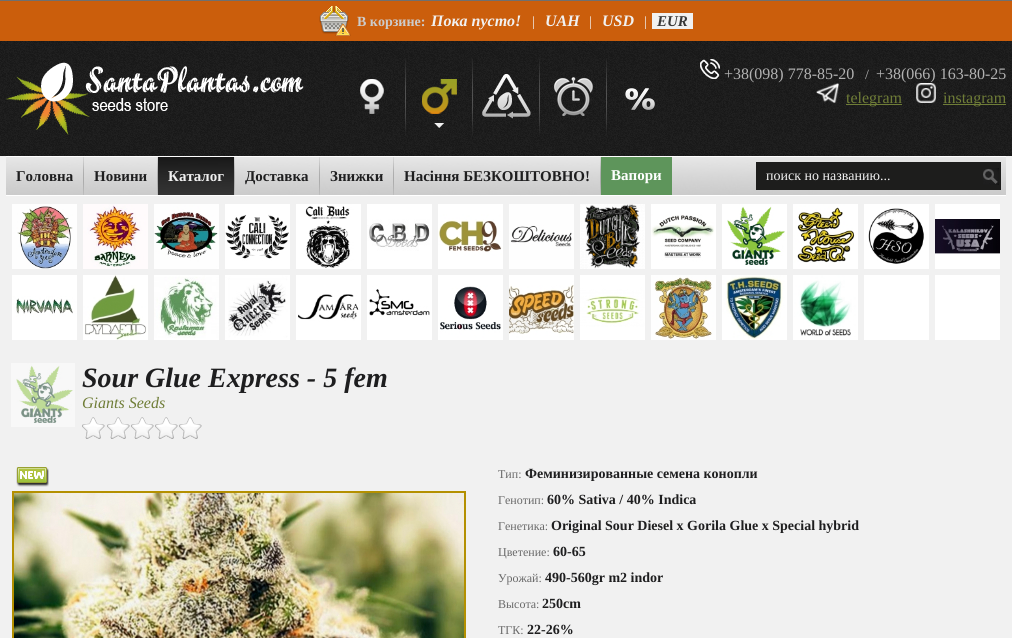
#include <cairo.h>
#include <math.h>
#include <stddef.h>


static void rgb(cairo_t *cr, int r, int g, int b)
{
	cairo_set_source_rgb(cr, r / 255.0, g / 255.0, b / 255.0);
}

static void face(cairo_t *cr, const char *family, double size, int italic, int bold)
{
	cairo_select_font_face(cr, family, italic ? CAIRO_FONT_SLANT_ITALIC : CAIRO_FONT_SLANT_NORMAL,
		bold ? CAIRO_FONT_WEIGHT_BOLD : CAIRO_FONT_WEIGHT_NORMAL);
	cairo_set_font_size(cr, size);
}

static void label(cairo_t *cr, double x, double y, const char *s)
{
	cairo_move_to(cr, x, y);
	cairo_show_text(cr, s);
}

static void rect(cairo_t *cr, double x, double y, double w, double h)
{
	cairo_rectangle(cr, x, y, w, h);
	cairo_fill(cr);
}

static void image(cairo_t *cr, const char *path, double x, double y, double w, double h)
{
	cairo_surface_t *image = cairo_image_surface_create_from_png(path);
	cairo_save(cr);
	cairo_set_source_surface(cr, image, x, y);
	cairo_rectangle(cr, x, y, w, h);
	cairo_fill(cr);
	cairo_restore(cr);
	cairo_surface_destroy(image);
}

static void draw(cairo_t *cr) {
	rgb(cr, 255, 255, 255);
	cairo_paint(cr);
	rgb(cr, 203, 94, 12);
	rect(cr, 0, 1, 1012, 40);
	rgb(cr, 111, 111, 111);
	rect(cr, 0, 0, 1012, 1);
	image(cr, "image0.png", 319, 6, 32, 30);
	face(cr, "Liberation Serif", 14, 0, 1);
	rgb(cr, 204, 204, 204);
	label(cr, 357, 26, "В корзине:");
	face(cr, "Liberation Serif", 16, 1, 1);
	rgb(cr, 241, 241, 241);
	label(cr, 431, 26, "Пока пусто!");
	face(cr, "Liberation Serif", 14, 0, 0);
	label(cr, 532, 26, "|");
	face(cr, "Liberation Serif", 16, 1, 1);
	label(cr, 545, 26, "UAH");
	face(cr, "Liberation Serif", 14, 0, 0);
	label(cr, 589, 26, "|");
	face(cr, "Liberation Serif", 16, 1, 1);
	label(cr, 602, 26, "USD");
	face(cr, "Liberation Serif", 14, 0, 0);
	label(cr, 644, 26, "|");
	rect(cr, 652, 13, 41, 16);
	face(cr, "Liberation Serif", 15, 1, 1);
	rgb(cr, 55, 55, 55);
	label(cr, 657, 26, "EUR");
	image(cr, "image1.png", 0, 41, 1012, 115);
	image(cr, "image2.png", 6, 62, 298, 73);
	image(cr, "image3.png", 360, 79, 24, 35);
	image(cr, "image4.png", 405, 58, 1, 77);
	image(cr, "image5.png", 422, 79, 35, 49);
	image(cr, "image6.png", 472, 58, 1, 77);
	image(cr, "image7.png", 482, 74, 49, 45);
	image(cr, "image8.png", 539, 58, 1, 77);
	image(cr, "image9.png", 554, 77, 39, 39);
	image(cr, "image10.png", 606, 58, 1, 77);
	image(cr, "image11.png", 625, 88, 30, 22);
	image(cr, "image12.png", 700, 59, 20, 20);
	face(cr, "Liberation Serif", 16, 0, 0);
	rgb(cr, 178, 178, 178);
	label(cr, 724, 79, "+38(098) 778-85-20");
	face(cr, "Liberation Serif", 14, 0, 0);
	label(cr, 865, 79, "/");
	face(cr, "Liberation Serif", 16, 0, 0);
	label(cr, 876, 79, "+38(066) 163-80-25");
	image(cr, "image13.png", 816, 83, 23, 20);
	rgb(cr, 111, 125, 55);
	rect(cr, 846, 104, 56, 1);
	label(cr, 846, 103, "telegram");
	image(cr, "image14.png", 916, 83, 20, 20);
	rect(cr, 943, 104, 63, 1);
	label(cr, 943, 103, "instagram");
	rgb(cr, 241, 241, 241);
	rect(cr, 0, 156, 1012, 482);
	image(cr, "image15.png", 6, 156, 1000, 40);
	face(cr, "Liberation Serif", 15, 0, 1);
	rgb(cr, 30, 30, 31);
	label(cr, 16, 181, "Головна");
	rgb(cr, 255, 255, 255);
	rect(cr, 83, 156, 1, 40);
	image(cr, "image16.png", 83, 157, 1, 38);
	rgb(cr, 30, 30, 31);
	label(cr, 94, 181, "Новини");
	rgb(cr, 255, 255, 255);
	rect(cr, 157, 156, 1, 40);
	image(cr, "image16.png", 157, 157, 1, 38);
	image(cr, "image17.png", 158, 156, 76, 40);
	rgb(cr, 241, 241, 241);
	label(cr, 168, 181, "Каталог");
	rgb(cr, 255, 255, 255);
	rect(cr, 234, 156, 1, 40);
	image(cr, "image16.png", 234, 157, 1, 38);
	rgb(cr, 30, 30, 31);
	label(cr, 245, 181, "Доставка");
	rgb(cr, 255, 255, 255);
	rect(cr, 319, 156, 1, 40);
	image(cr, "image16.png", 319, 157, 1, 38);
	rgb(cr, 30, 30, 31);
	label(cr, 330, 181, "Знижки");
	rgb(cr, 255, 255, 255);
	rect(cr, 393, 156, 1, 40);
	image(cr, "image16.png", 393, 157, 1, 38);
	rgb(cr, 30, 30, 31);
	label(cr, 404, 181, "Насіння БЕЗКОШТОВНО!");
	rgb(cr, 255, 255, 255);
	rect(cr, 600, 156, 1, 40);
	image(cr, "image16.png", 600, 157, 1, 38);
	rgb(cr, 94, 149, 91);
	rect(cr, 601, 157, 71, 38);
	rgb(cr, 255, 255, 255);
	label(cr, 611, 180, "Вапори");
	rgb(cr, 29, 29, 28);
	rect(cr, 756, 162, 245, 28);
	face(cr, "Liberation Serif", 14, 0, 0);
	rgb(cr, 241, 241, 241);
	label(cr, 766, 180, "поиск но названию...");
	image(cr, "image18.png", 983, 168, 16, 17);
	image(cr, "image19.png", 12, 204, 65, 65);
	image(cr, "image20.png", 83, 204, 65, 65);
	image(cr, "image21.png", 154, 204, 65, 65);
	image(cr, "image22.png", 225, 204, 65, 65);
	image(cr, "image23.png", 296, 204, 65, 65);
	image(cr, "image24.png", 367, 204, 65, 65);
	image(cr, "image25.png", 438, 204, 65, 65);
	image(cr, "image26.png", 509, 204, 65, 65);
	image(cr, "image27.png", 580, 204, 65, 65);
	image(cr, "image28.png", 651, 204, 65, 65);
	image(cr, "image29.png", 722, 204, 65, 65);
	image(cr, "image30.png", 793, 204, 65, 65);
	image(cr, "image31.png", 864, 204, 65, 65);
	image(cr, "image32.png", 935, 204, 65, 65);
	image(cr, "image33.png", 12, 275, 65, 65);
	image(cr, "image34.png", 83, 275, 65, 65);
	image(cr, "image35.png", 154, 275, 65, 65);
	image(cr, "image36.png", 225, 275, 65, 65);
	image(cr, "image37.png", 296, 275, 65, 65);
	image(cr, "image38.png", 367, 275, 65, 65);
	image(cr, "image39.png", 438, 275, 65, 65);
	image(cr, "image40.png", 509, 275, 65, 65);
	image(cr, "image41.png", 580, 275, 65, 65);
	image(cr, "image42.png", 651, 275, 65, 65);
	image(cr, "image43.png", 722, 275, 65, 65);
	image(cr, "image44.png", 793, 275, 65, 65);
	rgb(cr, 255, 255, 255);
	rect(cr, 864, 275, 65, 65);
	rect(cr, 935, 275, 65, 65);
	image(cr, "image45.png", 11, 363, 64, 64);
	face(cr, "Liberation Serif", 28, 1, 1);
	rgb(cr, 30, 30, 31);
	label(cr, 82, 387, "Sour Glue Express - 5 fem");
	face(cr, "Liberation Serif", 16, 1, 0);
	rgb(cr, 111, 125, 55);
	label(cr, 82, 408, "Giants Seeds");
	image(cr, "image46.png", 82, 417, 120, 22);
	image(cr, "image47.png", 16, 467, 33, 20);
	cairo_rectangle(cr, 13, 492, 452, 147);
	rgb(cr, 180, 144, 0);
	cairo_stroke(cr);
	image(cr, "image48.png", 14, 493, 450, 145);
	face(cr, "Liberation Serif", 12, 0, 0);
	rgb(cr, 105, 105, 105);
	label(cr, 498, 478, "Тип:");
	face(cr, "Liberation Serif", 14, 0, 1);
	rgb(cr, 30, 30, 31);
	label(cr, 525, 478, "Феминизированные семена конопли");
	face(cr, "Liberation Serif", 12, 0, 0);
	rgb(cr, 105, 105, 105);
	label(cr, 498, 504, "Генотип:");
	face(cr, "Liberation Serif", 14, 0, 1);
	rgb(cr, 30, 30, 31);
	label(cr, 547, 504, "60% Sativa / 40% Indica");
	face(cr, "Liberation Serif", 12, 0, 0);
	rgb(cr, 105, 105, 105);
	label(cr, 498, 530, "Генетика:");
	face(cr, "Liberation Serif", 14, 0, 1);
	rgb(cr, 30, 30, 31);
	label(cr, 551, 530, "Original Sour Diesel x Gorila Glue x Special hybrid");
	face(cr, "Liberation Serif", 12, 0, 0);
	rgb(cr, 105, 105, 105);
	label(cr, 498, 556, "Цветение:");
	face(cr, "Liberation Serif", 14, 0, 1);
	rgb(cr, 30, 30, 31);
	label(cr, 553, 556, "60-65");
	face(cr, "Liberation Serif", 12, 0, 0);
	rgb(cr, 105, 105, 105);
	label(cr, 498, 582, "Урожай:");
	face(cr, "Liberation Serif", 14, 0, 1);
	rgb(cr, 30, 30, 31);
	label(cr, 545, 582, "490-560gr m2 indor");
	face(cr, "Liberation Serif", 12, 0, 0);
	rgb(cr, 105, 105, 105);
	label(cr, 498, 608, "Высота:");
	face(cr, "Liberation Serif", 14, 0, 1);
	rgb(cr, 30, 30, 31);
	label(cr, 542, 608, "250cm");
	face(cr, "Liberation Serif", 12, 0, 0);
	rgb(cr, 105, 105, 105);
	label(cr, 498, 634, "ТГК:");
	face(cr, "Liberation Serif", 14, 0, 1);
	rgb(cr, 30, 30, 31);
	label(cr, 527, 634, "22-26%");
}

int main(void) {
	cairo_surface_t *surface = cairo_image_surface_create(CAIRO_FORMAT_RGB24, 1012, 638);
	cairo_t *cr = cairo_create(surface);
	cairo_font_options_t *options = cairo_font_options_create();
	cairo_font_options_set_hint_metrics(options, CAIRO_HINT_METRICS_OFF);
	cairo_font_options_set_hint_style(options, CAIRO_HINT_STYLE_NONE);
	cairo_set_font_options(cr, options);
	cairo_set_miter_limit(cr, 4);
	draw(cr);
	cairo_surface_write_to_png(surface, "render.png");
	cairo_font_options_destroy(options);
	cairo_destroy(cr);
	cairo_surface_destroy(surface);
	return 0;
}
